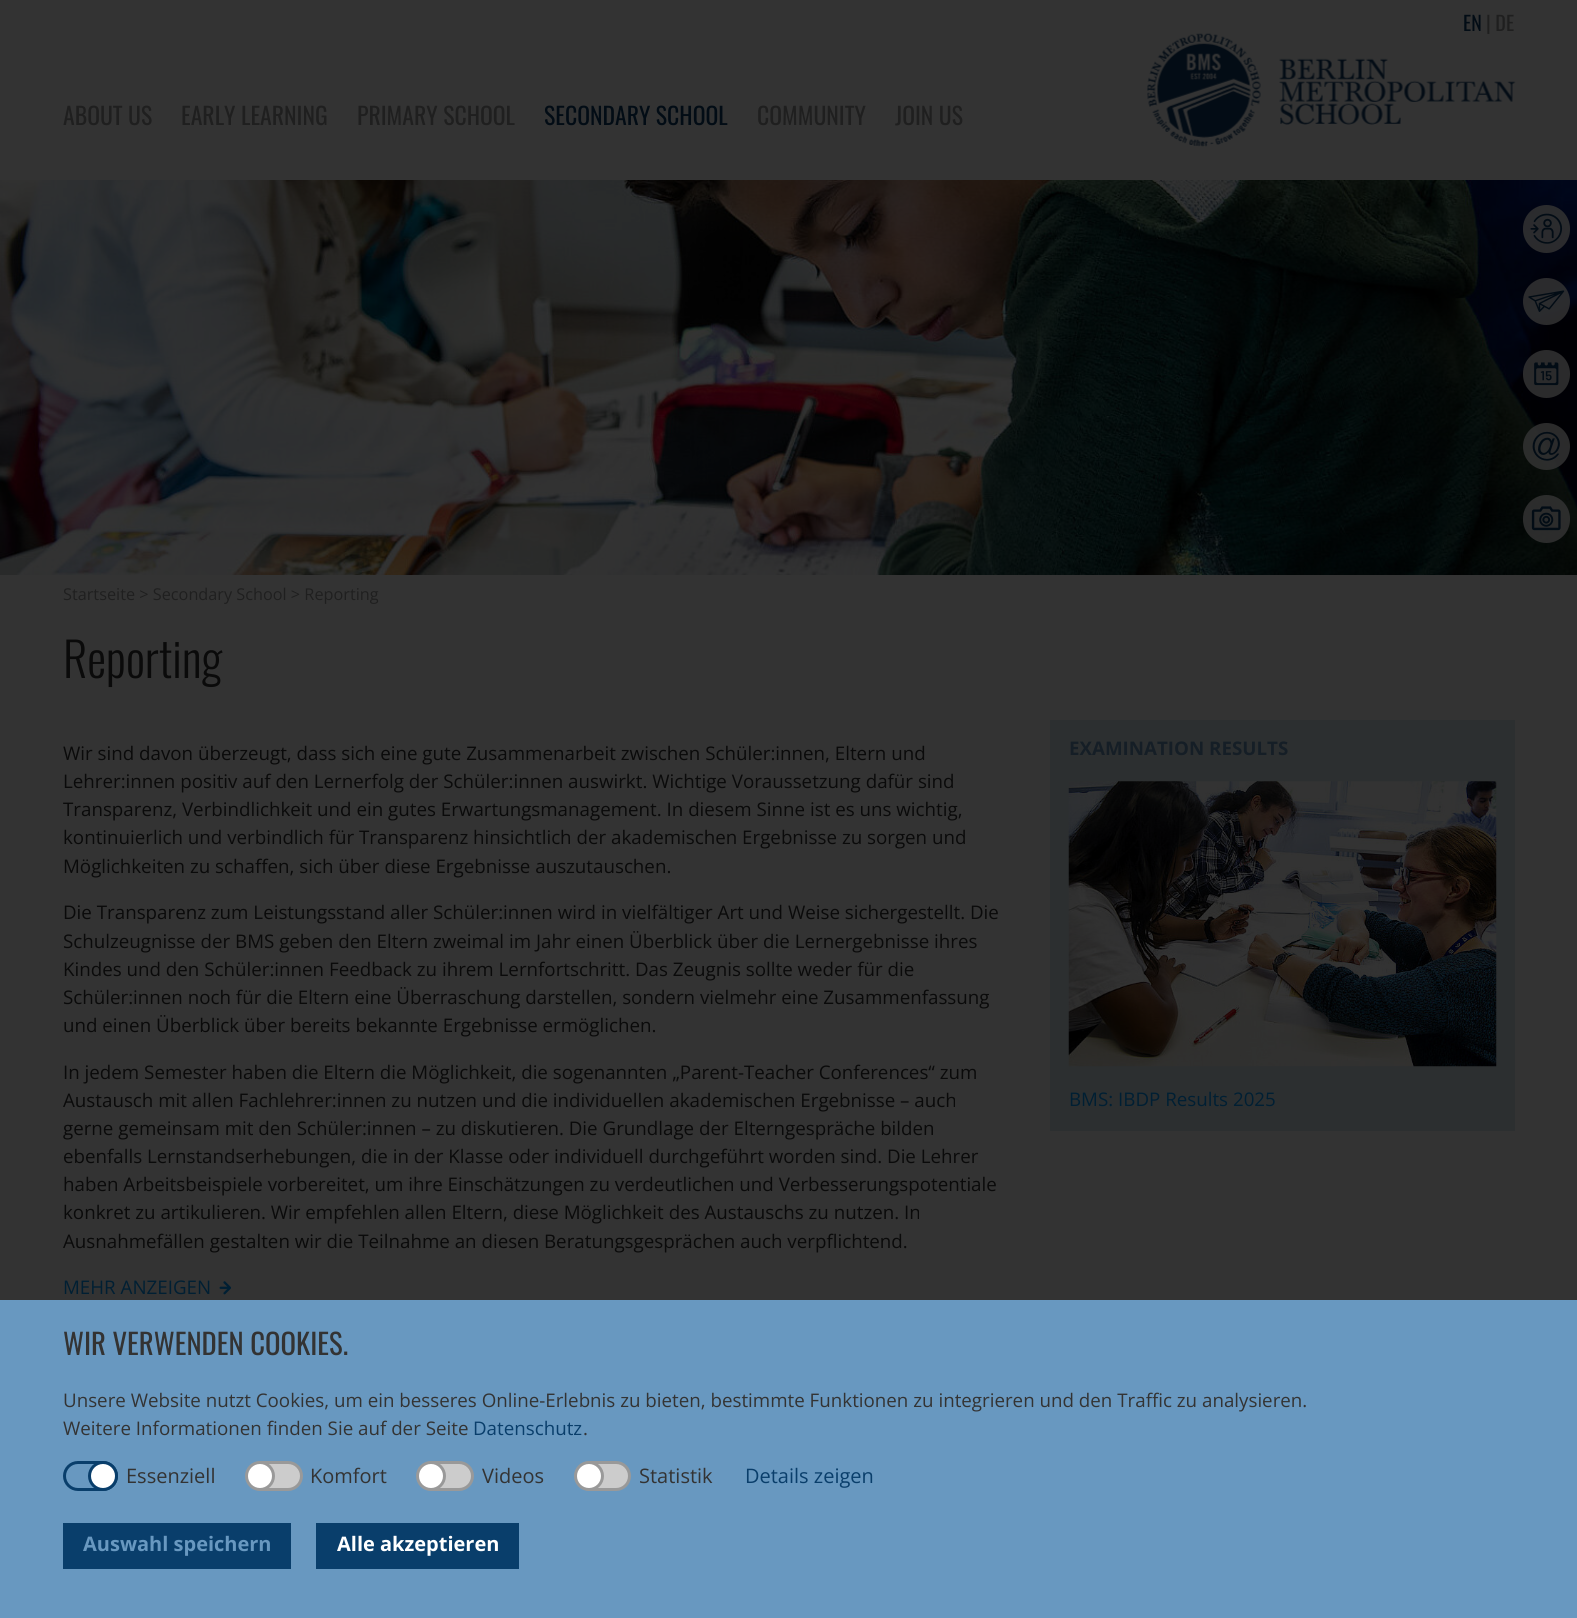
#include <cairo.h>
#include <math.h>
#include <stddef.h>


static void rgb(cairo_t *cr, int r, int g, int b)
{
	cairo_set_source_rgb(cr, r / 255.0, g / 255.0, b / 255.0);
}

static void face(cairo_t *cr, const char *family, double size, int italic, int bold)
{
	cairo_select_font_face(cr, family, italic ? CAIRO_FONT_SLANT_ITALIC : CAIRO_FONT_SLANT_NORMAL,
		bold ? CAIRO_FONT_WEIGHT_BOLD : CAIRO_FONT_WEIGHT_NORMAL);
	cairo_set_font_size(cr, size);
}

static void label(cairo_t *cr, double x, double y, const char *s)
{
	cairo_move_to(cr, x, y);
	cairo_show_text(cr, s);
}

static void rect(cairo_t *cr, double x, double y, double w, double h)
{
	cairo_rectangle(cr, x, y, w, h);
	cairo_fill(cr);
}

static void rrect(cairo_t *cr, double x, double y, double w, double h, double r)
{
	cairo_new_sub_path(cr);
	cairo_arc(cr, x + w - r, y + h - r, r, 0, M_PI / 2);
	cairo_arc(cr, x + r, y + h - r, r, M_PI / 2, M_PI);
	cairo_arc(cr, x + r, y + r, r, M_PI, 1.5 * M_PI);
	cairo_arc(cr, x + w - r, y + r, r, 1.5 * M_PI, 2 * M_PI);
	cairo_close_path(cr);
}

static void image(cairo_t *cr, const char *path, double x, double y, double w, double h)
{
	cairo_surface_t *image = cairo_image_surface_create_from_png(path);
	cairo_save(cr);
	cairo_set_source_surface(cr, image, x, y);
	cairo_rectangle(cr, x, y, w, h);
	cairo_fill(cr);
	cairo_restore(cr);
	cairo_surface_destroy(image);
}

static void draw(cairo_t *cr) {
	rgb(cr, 51, 51, 51);
	cairo_paint(cr);
	face(cr, "Oswald", 20, 0, 0);
	rgb(cr, 2, 12, 21);
	label(cr, 1463, 31, "EN");
	rgb(cr, 31, 31, 31);
	label(cr, 1486, 31, "| DE");
	face(cr, "Oswald", 23.75, 0, 0);
	label(cr, 63, 125, "ABOUT US");
	label(cr, 181, 125, "EARLY LEARNING");
	label(cr, 357, 125, "PRIMARY SCHOOL");
	rgb(cr, 2, 12, 21);
	label(cr, 544, 125, "SECONDARY SCHOOL");
	rgb(cr, 31, 31, 31);
	label(cr, 757, 125, "COMMUNITY");
	label(cr, 895, 125, "JOIN US");
	image(cr, "image0.png", 1147, 33, 369, 114);
	image(cr, "image6.png", 0, 180, 1577, 395);
	cairo_set_source_rgba(cr, 0.2, 0.2, 0.2, 0.85);
	rrect(cr, 1523, 205, 47, 48, 23.5);
	cairo_fill(cr);
	image(cr, "image1.png", 1530, 213, 33, 31);
	cairo_arc(cr, 1546.5, 301.5, 23.5, 0, 2 * M_PI);
	cairo_fill(cr);
	image(cr, "image2.png", 1528, 290, 37, 22);
	rrect(cr, 1523, 350, 47, 48, 23.5);
	cairo_fill(cr);
	image(cr, "image3.png", 1534, 362, 25, 24);
	cairo_arc(cr, 1546.5, 446.5, 23.5, 0, 2 * M_PI);
	cairo_fill(cr);
	image(cr, "image4.png", 1532, 431, 28, 30);
	rrect(cr, 1523, 495, 47, 48, 23.5);
	cairo_fill(cr);
	image(cr, "image5.png", 1531, 506, 30, 25);
	face(cr, "Open Sans", 16.25, 0, 0);
	rgb(cr, 31, 31, 31);
	label(cr, 63, 600, "Startseite > Secondary School > Reporting");
	face(cr, "Oswald Light", 47.5, 0, 0);
	rgb(cr, 10, 10, 10);
	label(cr, 63, 678, "Reporting");
	face(cr, "Open Sans", 18.75, 0, 0);
	label(cr, 63, 760, "Wir sind davon überzeugt, dass sich eine gute Zusammenarbeit zwischen Schüler:innen, Eltern und");
	label(cr, 63, 788, "Lehrer:innen positiv auf den Lernerfolg der Schüler:innen auswirkt. Wichtige Voraussetzung dafür sind");
	label(cr, 63, 816, "Transparenz, Verbindlichkeit und ein gutes Erwartungsmanagement. In diesem Sinne ist es uns wichtig,");
	label(cr, 63, 844, "kontinuierlich und verbindlich für Transparenz hinsichtlich der akademischen Ergebnisse zu sorgen und");
	label(cr, 63, 873, "Möglichkeiten zu schaffen, sich über diese Ergebnisse auszutauschen.");
	label(cr, 63, 919, "Die Transparenz zum Leistungsstand aller Schüler:innen wird in vielfältiger Art und Weise sichergestellt. Die");
	label(cr, 63, 948, "Schulzeugnisse der BMS geben den Eltern zweimal im Jahr einen Überblick über die Lernergebnisse ihres");
	label(cr, 63, 976, "Kindes und den Schüler:innen Feedback zu ihrem Lernfortschritt. Das Zeugnis sollte weder für die");
	label(cr, 63, 1004, "Schüler:innen noch für die Eltern eine Überraschung darstellen, sondern vielmehr eine Zusammenfassung");
	label(cr, 63, 1032, "und einen Überblick über bereits bekannte Ergebnisse ermöglichen.");
	label(cr, 63, 1079, "In jedem Semester haben die Eltern die Möglichkeit, die sogenannten „Parent-Teacher Conferences“ zum");
	label(cr, 63, 1107, "Austausch mit allen Fachlehrer:innen zu nutzen und die individuellen akademischen Ergebnisse – auch");
	label(cr, 63, 1135, "gerne gemeinsam mit den Schüler:innen – zu diskutieren. Die Grundlage der Elterngespräche bilden");
	label(cr, 63, 1163, "ebenfalls Lernstandserhebungen, die in der Klasse oder individuell durchgeführt worden sind. Die Lehrer");
	label(cr, 63, 1191, "haben Arbeitsbeispiele vorbereitet, um ihre Einschätzungen zu verdeutlichen und Verbesserungspotentiale");
	label(cr, 63, 1219, "konkret zu artikulieren. Wir empfehlen allen Eltern, diese Möglichkeit des Austauschs zu nutzen. In");
	label(cr, 63, 1248, "Ausnahmefällen gestalten wir die Teilnahme an diesen Beratungsgesprächen auch verpflichtend.");
	rgb(cr, 0, 31, 51);
	label(cr, 63, 1294, "MEHR ANZEIGEN");
	image(cr, "image7.png", 219, 1281, 12, 14);
	rgb(cr, 44, 47, 48);
	rect(cr, 1050, 720, 465, 411);
	face(cr, "Open Sans", 18.75, 0, 1);
	rgb(cr, 21, 30, 38);
	label(cr, 1069, 755, "EXAMINATION RESULTS");
	image(cr, "image8.png", 1068, 781, 429, 286);
	face(cr, "Open Sans", 18.75, 0, 0);
	rgb(cr, 0, 31, 51);
	label(cr, 1069, 1106, "BMS: IBDP Results 2025");
	rgb(cr, 104, 152, 192);
	rect(cr, 0, 1300, 1577, 318);
	face(cr, "Oswald", 28.75, 0, 0);
	rgb(cr, 51, 51, 51);
	label(cr, 63, 1355, "WIR VERWENDEN COOKIES.");
	face(cr, "Open Sans", 18.75, 0, 0);
	label(cr, 63, 1407, "Unsere Website nutzt Cookies, um ein besseres Online-Erlebnis zu bieten, bestimmte Funktionen zu integrieren und den Traffic zu analysieren.");
	label(cr, 63, 1435, "Weitere Informationen finden Sie auf der Seite");
	rgb(cr, 9, 62, 107);
	label(cr, 473, 1435, "Datenschutz");
	rgb(cr, 51, 51, 51);
	label(cr, 583, 1435, ".");
	rrect(cr, 64.5, 1462.5, 52, 27, 13.5);
	rgb(cr, 9, 62, 107);
	cairo_set_line_width(cr, 3);
	cairo_stroke(cr);
	rgb(cr, 255, 255, 255);
	cairo_arc(cr, 103, 1476, 13.5, 0, 2 * M_PI);
	cairo_fill_preserve(cr);
	rgb(cr, 9, 62, 107);
	cairo_stroke(cr);
	face(cr, "Open Sans", 20, 0, 0);
	rgb(cr, 51, 51, 51);
	label(cr, 126, 1483, "Essenziell");
	rgb(cr, 204, 204, 204);
	rrect(cr, 249.5, 1462.5, 52, 27, 13.5);
	cairo_fill_preserve(cr);
	rgb(cr, 153, 153, 153);
	cairo_stroke(cr);
	rgb(cr, 255, 255, 255);
	cairo_arc(cr, 260, 1476, 13.5, 0, 2 * M_PI);
	cairo_fill_preserve(cr);
	rgb(cr, 153, 153, 153);
	cairo_stroke(cr);
	rgb(cr, 51, 51, 51);
	label(cr, 310, 1483, "Komfort");
	rgb(cr, 204, 204, 204);
	rrect(cr, 420.5, 1462.5, 52, 27, 13.5);
	cairo_fill_preserve(cr);
	rgb(cr, 153, 153, 153);
	cairo_stroke(cr);
	rgb(cr, 255, 255, 255);
	cairo_arc(cr, 431, 1476, 13.5, 0, 2 * M_PI);
	cairo_fill_preserve(cr);
	rgb(cr, 153, 153, 153);
	cairo_stroke(cr);
	rgb(cr, 51, 51, 51);
	label(cr, 482, 1483, "Videos");
	rgb(cr, 204, 204, 204);
	rrect(cr, 577.5, 1462.5, 52, 27, 13.5);
	cairo_fill_preserve(cr);
	rgb(cr, 153, 153, 153);
	cairo_stroke(cr);
	rgb(cr, 255, 255, 255);
	cairo_arc(cr, 589, 1476, 13.5, 0, 2 * M_PI);
	cairo_fill_preserve(cr);
	rgb(cr, 153, 153, 153);
	cairo_stroke(cr);
	rgb(cr, 51, 51, 51);
	label(cr, 639, 1483, "Statistik");
	rgb(cr, 9, 62, 107);
	label(cr, 745, 1483, "Details zeigen");
	rect(cr, 63, 1523, 228, 46);
	face(cr, "Open Sans", 20, 0, 1);
	rgb(cr, 104, 152, 192);
	label(cr, 83, 1551, "Auswahl speichern");
	rgb(cr, 9, 62, 107);
	rect(cr, 316, 1523, 203, 46);
	rgb(cr, 255, 255, 255);
	label(cr, 337, 1551, "Alle akzeptieren");
}

int main(void) {
	cairo_surface_t *surface = cairo_image_surface_create(CAIRO_FORMAT_RGB24, 1577, 1618);
	cairo_t *cr = cairo_create(surface);
	cairo_font_options_t *options = cairo_font_options_create();
	cairo_font_options_set_hint_metrics(options, CAIRO_HINT_METRICS_OFF);
	cairo_font_options_set_hint_style(options, CAIRO_HINT_STYLE_NONE);
	cairo_set_font_options(cr, options);
	cairo_set_miter_limit(cr, 4);
	draw(cr);
	cairo_surface_write_to_png(surface, "render.png");
	cairo_font_options_destroy(options);
	cairo_destroy(cr);
	cairo_surface_destroy(surface);
	return 0;
}
